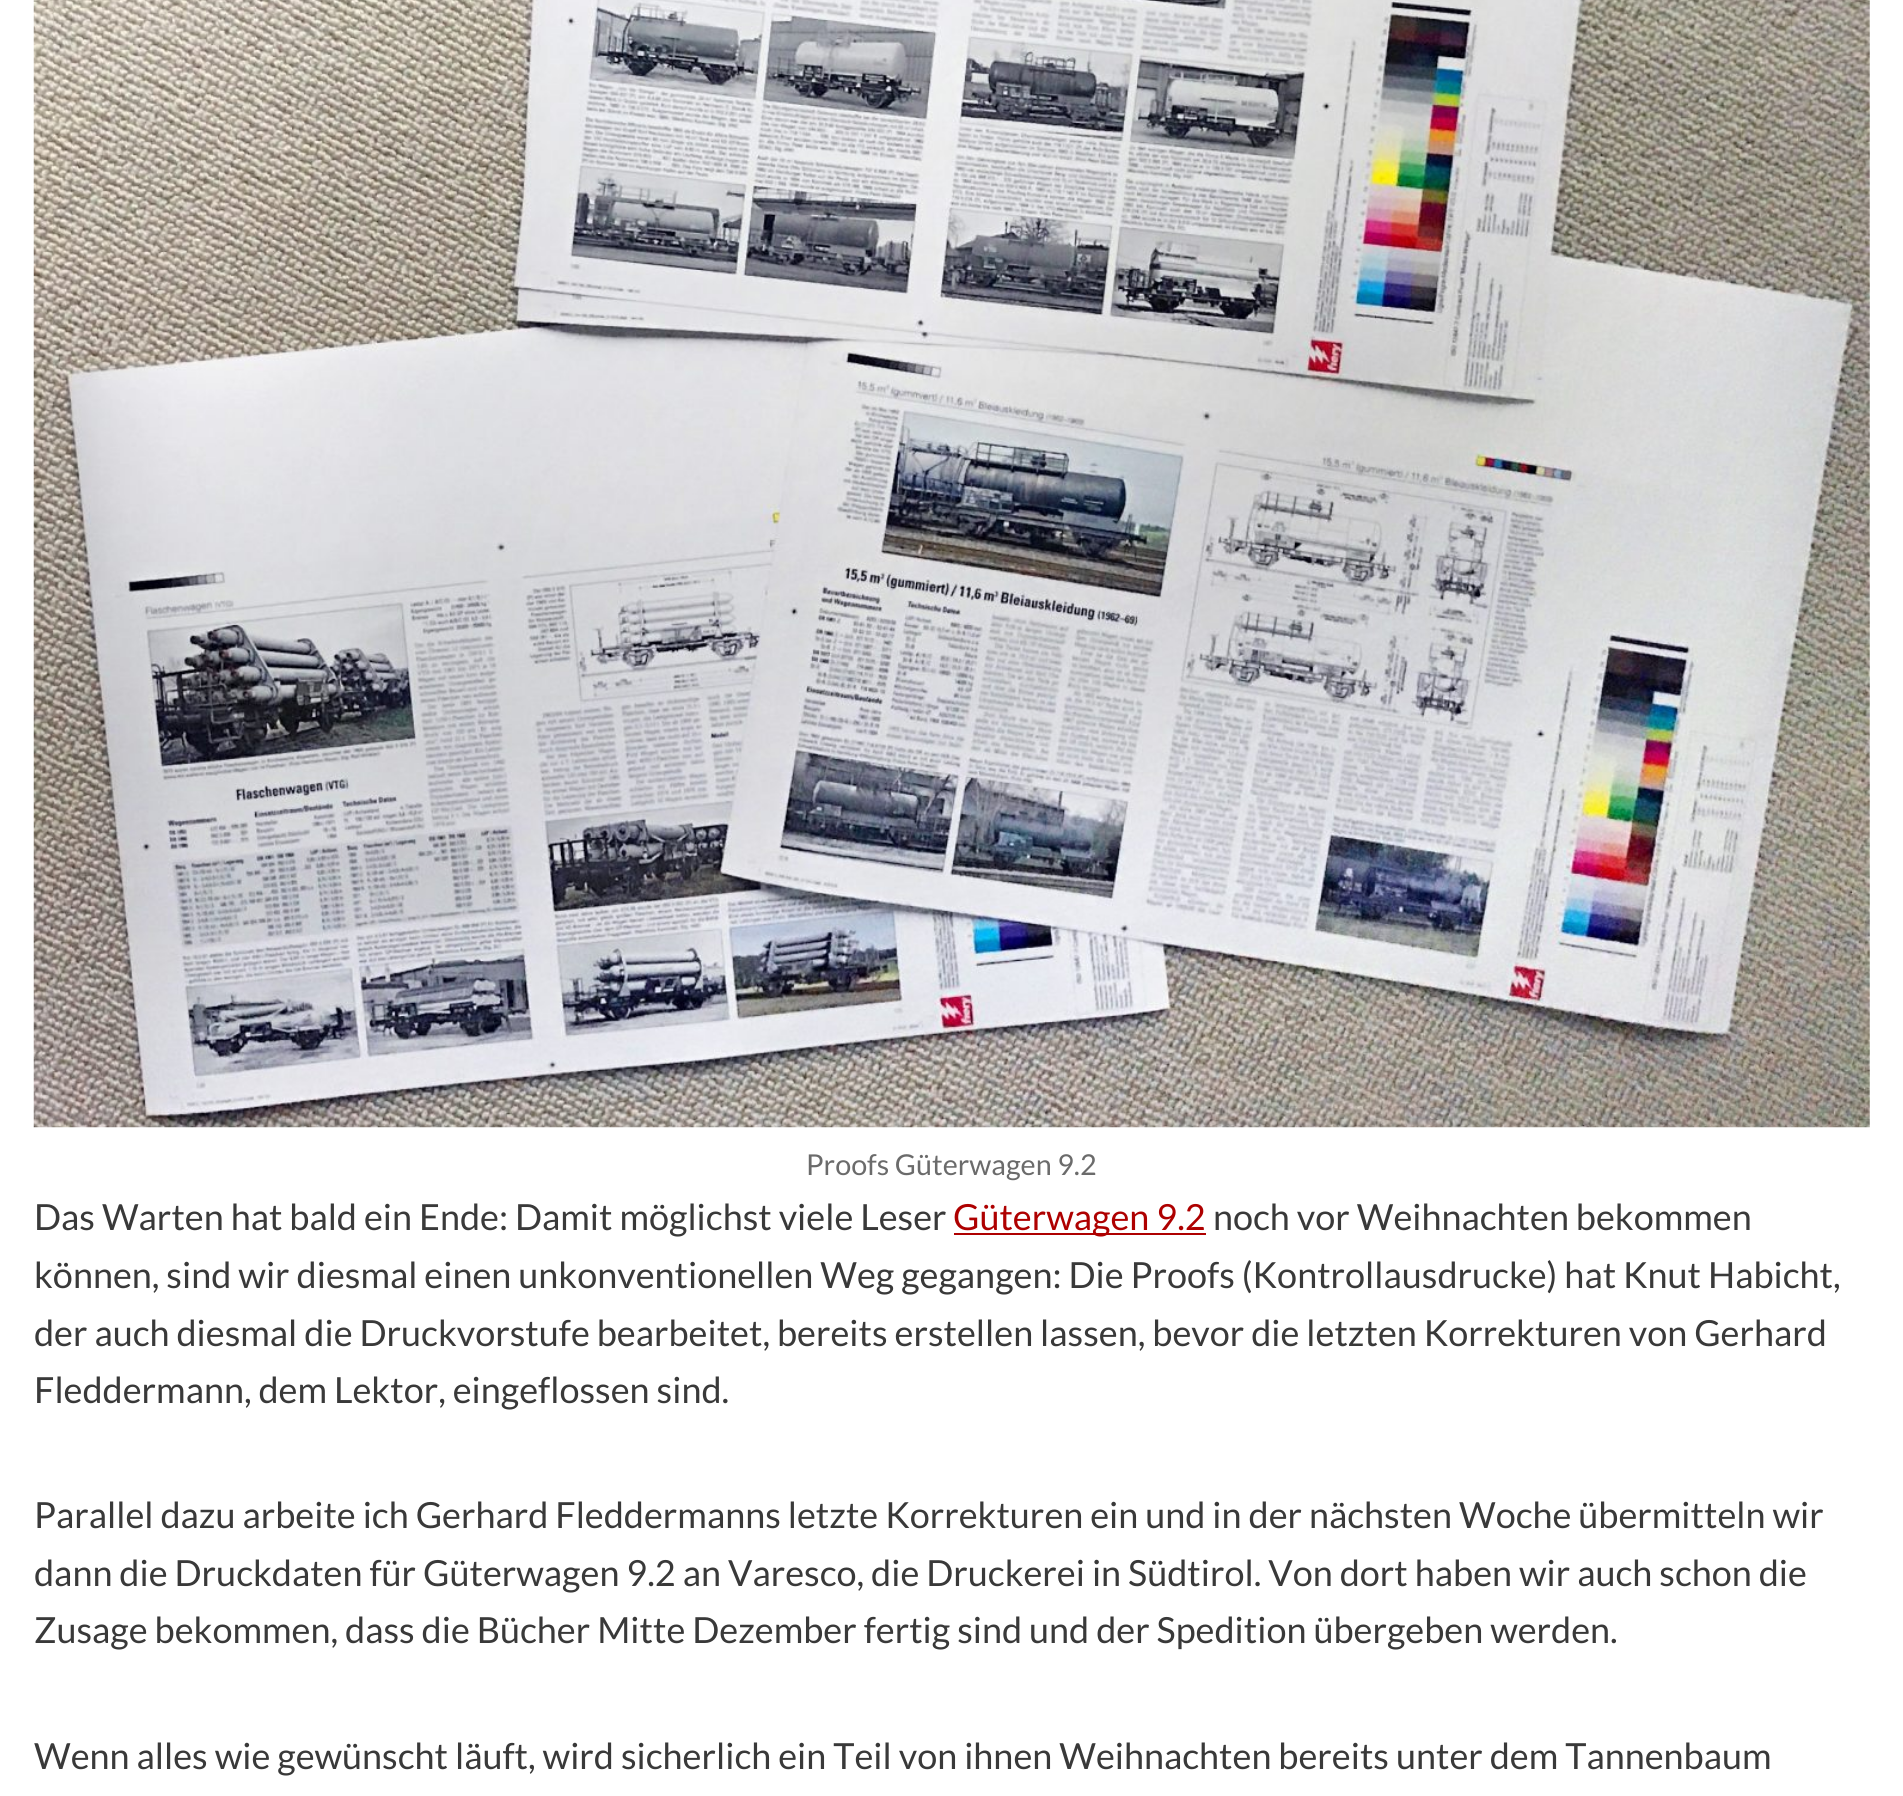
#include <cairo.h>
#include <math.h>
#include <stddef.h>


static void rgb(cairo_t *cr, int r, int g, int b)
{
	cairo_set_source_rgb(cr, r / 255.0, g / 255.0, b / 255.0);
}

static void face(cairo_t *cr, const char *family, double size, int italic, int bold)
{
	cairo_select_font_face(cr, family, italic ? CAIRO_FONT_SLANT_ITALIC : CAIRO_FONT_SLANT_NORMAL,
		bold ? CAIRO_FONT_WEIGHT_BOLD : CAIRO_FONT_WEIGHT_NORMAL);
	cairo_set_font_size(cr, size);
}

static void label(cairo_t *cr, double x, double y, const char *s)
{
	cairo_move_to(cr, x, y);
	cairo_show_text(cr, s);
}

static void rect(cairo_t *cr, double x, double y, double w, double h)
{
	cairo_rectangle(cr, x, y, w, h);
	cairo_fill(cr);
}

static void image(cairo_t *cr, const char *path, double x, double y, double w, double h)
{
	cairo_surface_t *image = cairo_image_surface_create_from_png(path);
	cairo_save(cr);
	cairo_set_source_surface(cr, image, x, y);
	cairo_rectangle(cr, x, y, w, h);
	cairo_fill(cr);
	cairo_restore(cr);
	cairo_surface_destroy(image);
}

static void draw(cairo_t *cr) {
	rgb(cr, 255, 255, 255);
	cairo_paint(cr);
	image(cr, "image0.png", 33, 0, 1837, 1128);
	face(cr, "Lato", 28.75, 0, 0);
	rgb(cr, 107, 107, 107);
	label(cr, 806, 1175, "Proofs Güterwagen 9.2");
	face(cr, "Lato", 36, 0, 0);
	rgb(cr, 57, 57, 57);
	label(cr, 34, 1230, "Das Warten hat bald ein Ende: Damit möglichst viele Leser");
	rgb(cr, 174, 0, 0);
	rect(cr, 954, 1233, 252, 2);
	label(cr, 953, 1230, "Güterwagen 9.2");
	rgb(cr, 57, 57, 57);
	label(cr, 1213, 1230, "noch vor Weihnachten bekommen");
	label(cr, 34, 1288, "können, sind wir diesmal einen unkonventionellen Weg gegangen: Die Proofs (Kontrollausdrucke) hat Knut Habicht,");
	label(cr, 34, 1346, "der auch diesmal die Druckvorstufe bearbeitet, bereits erstellen lassen, bevor die letzten Korrekturen von Gerhard");
	label(cr, 34, 1403, "Fleddermann, dem Lektor, eingeflossen sind.");
	label(cr, 34, 1528, "Parallel dazu arbeite ich Gerhard Fleddermanns letzte Korrekturen ein und in der nächsten Woche übermitteln wir");
	label(cr, 34, 1586, "dann die Druckdaten für Güterwagen 9.2 an Varesco, die Druckerei in Südtirol. Von dort haben wir auch schon die");
	label(cr, 34, 1643, "Zusage bekommen, dass die Bücher Mitte Dezember fertig sind und der Spedition übergeben werden.");
	label(cr, 34, 1769, "Wenn alles wie gewünscht läuft, wird sicherlich ein Teil von ihnen Weihnachten bereits unter dem Tannenbaum");
}

int main(void) {
	cairo_surface_t *surface = cairo_image_surface_create(CAIRO_FORMAT_RGB24, 1903, 1796);
	cairo_t *cr = cairo_create(surface);
	cairo_font_options_t *options = cairo_font_options_create();
	cairo_font_options_set_hint_metrics(options, CAIRO_HINT_METRICS_OFF);
	cairo_font_options_set_hint_style(options, CAIRO_HINT_STYLE_NONE);
	cairo_set_font_options(cr, options);
	cairo_set_miter_limit(cr, 4);
	draw(cr);
	cairo_surface_write_to_png(surface, "render.png");
	cairo_font_options_destroy(options);
	cairo_destroy(cr);
	cairo_surface_destroy(surface);
	return 0;
}
